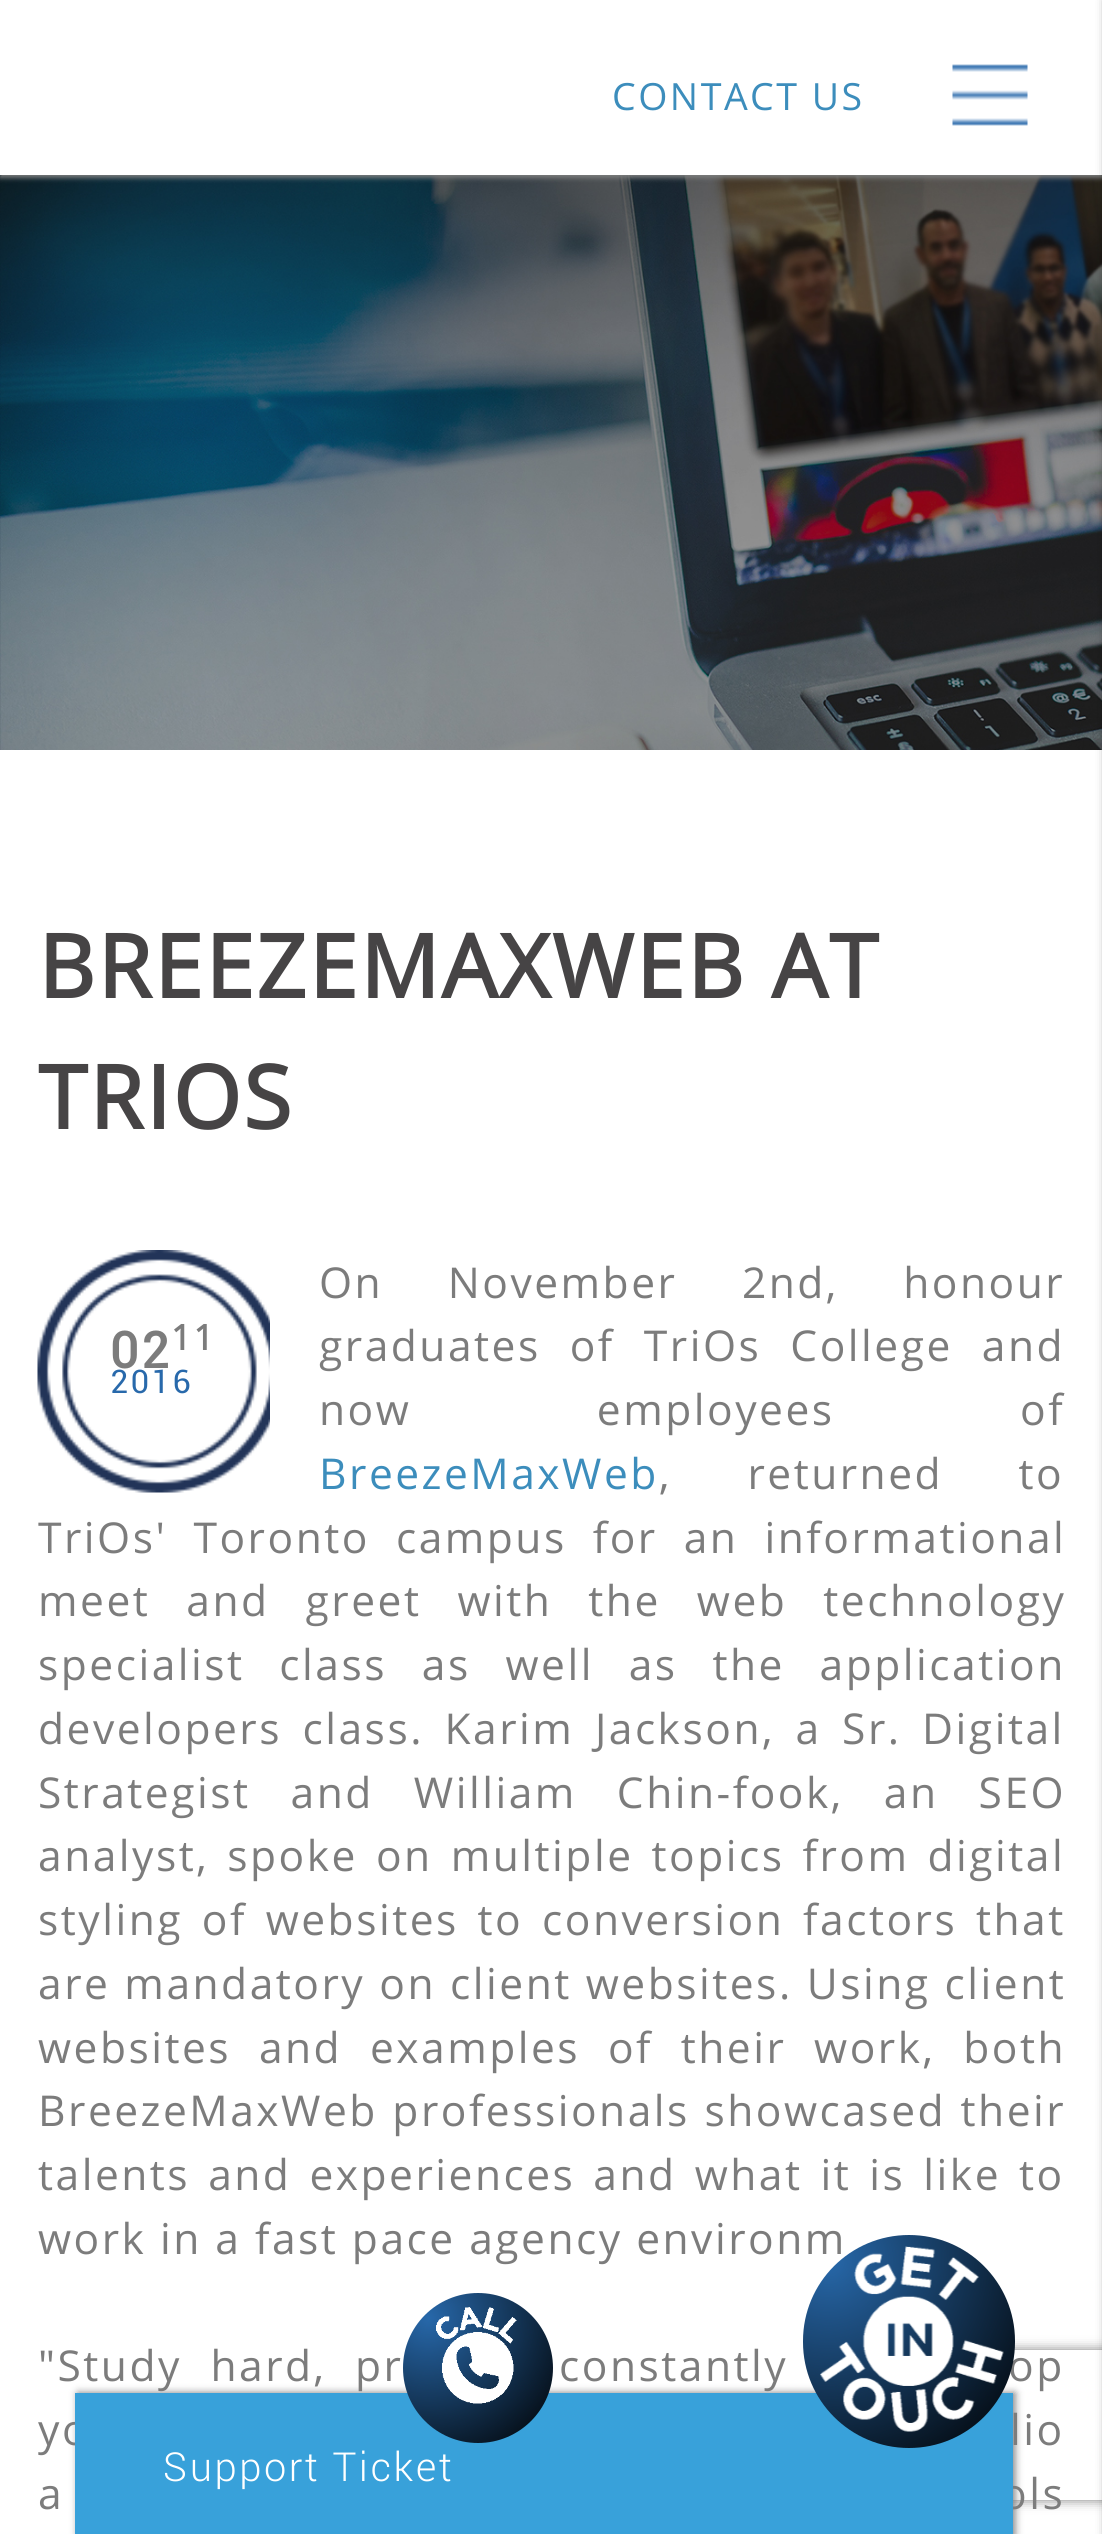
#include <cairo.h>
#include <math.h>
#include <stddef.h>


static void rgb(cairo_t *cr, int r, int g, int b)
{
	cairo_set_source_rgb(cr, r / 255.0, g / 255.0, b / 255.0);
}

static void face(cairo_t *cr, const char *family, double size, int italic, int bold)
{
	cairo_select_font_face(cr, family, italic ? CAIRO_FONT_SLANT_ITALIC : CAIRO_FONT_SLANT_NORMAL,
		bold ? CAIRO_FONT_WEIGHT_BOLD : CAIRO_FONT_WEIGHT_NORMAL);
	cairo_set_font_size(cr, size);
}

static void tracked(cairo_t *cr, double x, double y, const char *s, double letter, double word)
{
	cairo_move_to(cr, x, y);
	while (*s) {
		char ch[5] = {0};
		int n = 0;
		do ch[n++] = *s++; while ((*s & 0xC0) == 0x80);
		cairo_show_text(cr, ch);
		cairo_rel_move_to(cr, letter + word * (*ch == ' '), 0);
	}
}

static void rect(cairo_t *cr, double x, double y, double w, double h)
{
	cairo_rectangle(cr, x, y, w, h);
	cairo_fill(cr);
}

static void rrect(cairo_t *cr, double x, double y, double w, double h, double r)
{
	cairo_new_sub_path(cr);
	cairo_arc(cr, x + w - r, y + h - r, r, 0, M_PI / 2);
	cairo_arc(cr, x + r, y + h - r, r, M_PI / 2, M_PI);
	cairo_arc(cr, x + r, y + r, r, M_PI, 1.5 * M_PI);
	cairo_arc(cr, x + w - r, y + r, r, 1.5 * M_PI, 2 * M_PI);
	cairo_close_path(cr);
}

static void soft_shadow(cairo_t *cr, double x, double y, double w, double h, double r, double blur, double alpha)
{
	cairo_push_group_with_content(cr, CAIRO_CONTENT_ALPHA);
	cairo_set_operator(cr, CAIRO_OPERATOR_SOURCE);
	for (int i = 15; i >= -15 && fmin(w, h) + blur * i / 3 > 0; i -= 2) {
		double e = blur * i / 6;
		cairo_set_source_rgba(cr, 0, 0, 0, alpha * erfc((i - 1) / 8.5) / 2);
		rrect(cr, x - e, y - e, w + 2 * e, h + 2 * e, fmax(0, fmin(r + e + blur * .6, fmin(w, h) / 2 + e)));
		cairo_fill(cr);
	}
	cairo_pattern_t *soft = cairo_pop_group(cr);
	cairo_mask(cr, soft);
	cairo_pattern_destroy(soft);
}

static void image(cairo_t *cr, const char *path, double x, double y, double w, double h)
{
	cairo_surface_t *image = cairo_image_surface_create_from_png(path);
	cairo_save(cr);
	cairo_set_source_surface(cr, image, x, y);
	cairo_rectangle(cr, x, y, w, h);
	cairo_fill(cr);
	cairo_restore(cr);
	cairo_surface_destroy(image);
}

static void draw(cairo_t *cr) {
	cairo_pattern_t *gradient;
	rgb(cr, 255, 255, 255);
	cairo_paint(cr);
	rgb(cr, 124, 124, 125);
	soft_shadow(cr, 78, 2393, 937, 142, 0, 4, 1);
	face(cr, "Open Sans", 42.5, 0, 0);
	rgb(cr, 124, 124, 124);
	tracked(cr, 38, 2445, "yo", 2.5, 15);
	tracked(cr, 1001, 2509, "ols", 2.5, 4);
	cairo_save(cr);
	cairo_set_fill_rule(cr, CAIRO_FILL_RULE_EVEN_ODD);
	cairo_new_path(cr);
	cairo_move_to(cr, 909, 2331);
	cairo_line_to(cr, 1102, 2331);
	cairo_line_to(cr, 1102, 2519);
	cairo_line_to(cr, 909, 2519);
	cairo_close_path(cr);
	cairo_move_to(cr, 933, 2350);
	cairo_line_to(cr, 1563, 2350);
	cairo_curve_to(cr, 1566, 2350, 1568, 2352, 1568, 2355);
	cairo_line_to(cr, 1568, 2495);
	cairo_curve_to(cr, 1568, 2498, 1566, 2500, 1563, 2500);
	cairo_line_to(cr, 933, 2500);
	cairo_curve_to(cr, 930, 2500, 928, 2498, 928, 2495);
	cairo_line_to(cr, 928, 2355);
	cairo_curve_to(cr, 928, 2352, 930, 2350, 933, 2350);
	cairo_close_path(cr);
	cairo_clip(cr);
	rgb(cr, 128, 128, 128);
	soft_shadow(cr, 928, 2350, 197, 150, 5, 6, 1);
	cairo_restore(cr);
	rgb(cr, 56, 161, 218);
	rect(cr, 75, 2393, 938, 141);
	gradient = cairo_pattern_create_radial(428, 2318, 0, 428, 2318, 177);
	cairo_pattern_add_color_stop_rgba(gradient, 0, 0.153, 0.408, 0.667, 1);
	cairo_pattern_add_color_stop_rgba(gradient, 1, 0, 0, 0, 1);
	cairo_set_source(cr, gradient);
	cairo_pattern_destroy(gradient);
	cairo_arc(cr, 478, 2368, 75, 0, 2 * M_PI);
	cairo_fill(cr);
	image(cr, "image0.png", 436, 2307, 81, 97);
	rgb(cr, 124, 124, 124);
	tracked(cr, 38, 2254, "work in a fast pace agency environm", 2.5, 0);
	tracked(cr, 1008, 2381, "op", 2.5, 15);
	tracked(cr, 1010, 2445, "lio", 2.5, 15);
	gradient = cairo_pattern_create_radial(828, 2260, 0, 828, 2260, 265);
	cairo_pattern_add_color_stop_rgba(gradient, 0, 0.153, 0.408, 0.667, 1);
	cairo_pattern_add_color_stop_rgba(gradient, 1, 0, 0, 0, 1);
	cairo_set_source(cr, gradient);
	cairo_pattern_destroy(gradient);
	rrect(cr, 803, 2235, 212, 213, 106);
	cairo_fill(cr);
	image(cr, "image1.png", 820, 2246, 184, 186);
	image(cr, "image3.png", 0, 175, 1102, 575);
	rgb(cr, 124, 125, 125);
	soft_shadow(cr, 0, 3, 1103, 175, 0, 2.5, 1);
	rgb(cr, 255, 255, 255);
	rect(cr, 0, 0, 1102, 175);
	rgb(cr, 0, 0, 0);
	soft_shadow(cr, 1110, 0, 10, 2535, 0, 6, 1);
	face(cr, "Open Sans", 37.5, 0, 0);
	rgb(cr, 60, 141, 188);
	tracked(cr, 612, 110, "CONTACT US", 2.5, 0);
	image(cr, "image2.png", 952, 64, 76, 62);
	face(cr, "Open Sans", 87.5, 0, 1);
	rgb(cr, 70, 68, 69);
	tracked(cr, 38, 998, "BREEZEMAXWEB AT", 2.5, 0);
	tracked(cr, 38, 1129, "TRIOS", 2.5, 0);
	face(cr, "Open Sans", 42.5, 0, 0);
	rgb(cr, 124, 124, 124);
	tracked(cr, 319, 1298, "On November 2nd, honour", 2.5, 51);
	tracked(cr, 319, 1361, "graduates of TriOs College and", 2.5, 15.5);
	tracked(cr, 319, 1425, "now employees of", 2.5, 172);
	rgb(cr, 60, 141, 188);
	tracked(cr, 319, 1489, "BreezeMaxWeb", 2.5, 0);
	rgb(cr, 124, 124, 124);
	tracked(cr, 659, 1489, ", returned to", 2.5, 62);
	tracked(cr, 38, 1553, "TriOs' Toronto campus for an informational", 2.5, 12.5);
	tracked(cr, 38, 1616, "meet and greet with the web technology", 2.5, 22.5);
	tracked(cr, 38, 1680, "specialist class as well as the application", 2.5, 21.25);
	tracked(cr, 38, 1744, "developers class. Karim Jackson, a Sr. Digital", 2.5, 7);
	tracked(cr, 38, 1808, "Strategist and William Chin-fook, an SEO", 2.5, 26.5);
	tracked(cr, 38, 1871, "analyst, spoke on multiple topics from digital", 2.5, 4.5);
	tracked(cr, 38, 1935, "styling of websites to conversion factors that", 2.5, 5.25);
	tracked(cr, 38, 1999, "are mandatory on client websites. Using client", 2.5, 0.5);
	tracked(cr, 38, 2063, "websites and examples of their work, both", 2.5, 14.25);
	tracked(cr, 38, 2126, "BreezeMaxWeb professionals showcased their", 2.5, 1);
	tracked(cr, 38, 2190, "talents and experiences and what it is like to", 2.5, 4.5);
	tracked(cr, 38, 2381, "\"Study hard, pr", 2.5, 15);
	tracked(cr, 559, 2381, "constantly", 2.5, 15);
	tracked(cr, 38, 2509, "a", 2.5, 4);
	image(cr, "image4.png", 37, 1250, 233, 243);
	face(cr, "Roboto", 50, 0, 1);
	tracked(cr, 110, 1368, "02", 2.5, 0);
	face(cr, "Open Sans", 35, 0, 1);
	tracked(cr, 171, 1350, "11", 2.5, 0);
	face(cr, "Roboto", 32.5, 0, 0);
	rgb(cr, 40, 105, 171);
	tracked(cr, 110, 1393, "2016", 2.5, 0);
	face(cr, "Roboto Light", 40, 0, 0);
	rgb(cr, 255, 255, 255);
	tracked(cr, 163, 2481, "Support Ticket", 2.5, 0);
}

int main(void) {
	cairo_surface_t *surface = cairo_image_surface_create(CAIRO_FORMAT_RGB24, 1102, 2534);
	cairo_t *cr = cairo_create(surface);
	cairo_font_options_t *options = cairo_font_options_create();
	cairo_font_options_set_hint_metrics(options, CAIRO_HINT_METRICS_OFF);
	cairo_font_options_set_hint_style(options, CAIRO_HINT_STYLE_NONE);
	cairo_set_font_options(cr, options);
	cairo_set_miter_limit(cr, 4);
	draw(cr);
	cairo_surface_write_to_png(surface, "render.png");
	cairo_font_options_destroy(options);
	cairo_destroy(cr);
	cairo_surface_destroy(surface);
	return 0;
}
